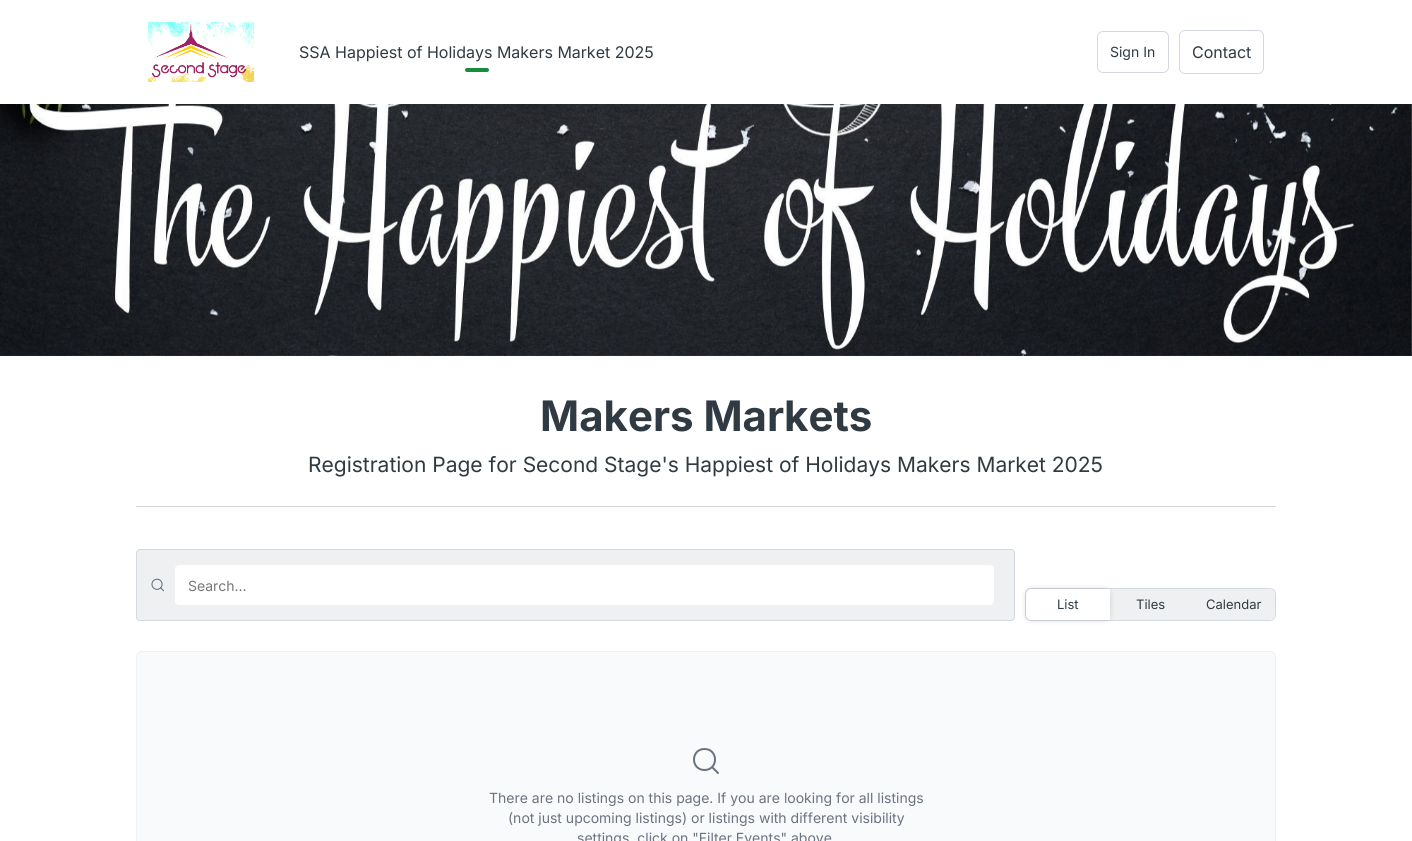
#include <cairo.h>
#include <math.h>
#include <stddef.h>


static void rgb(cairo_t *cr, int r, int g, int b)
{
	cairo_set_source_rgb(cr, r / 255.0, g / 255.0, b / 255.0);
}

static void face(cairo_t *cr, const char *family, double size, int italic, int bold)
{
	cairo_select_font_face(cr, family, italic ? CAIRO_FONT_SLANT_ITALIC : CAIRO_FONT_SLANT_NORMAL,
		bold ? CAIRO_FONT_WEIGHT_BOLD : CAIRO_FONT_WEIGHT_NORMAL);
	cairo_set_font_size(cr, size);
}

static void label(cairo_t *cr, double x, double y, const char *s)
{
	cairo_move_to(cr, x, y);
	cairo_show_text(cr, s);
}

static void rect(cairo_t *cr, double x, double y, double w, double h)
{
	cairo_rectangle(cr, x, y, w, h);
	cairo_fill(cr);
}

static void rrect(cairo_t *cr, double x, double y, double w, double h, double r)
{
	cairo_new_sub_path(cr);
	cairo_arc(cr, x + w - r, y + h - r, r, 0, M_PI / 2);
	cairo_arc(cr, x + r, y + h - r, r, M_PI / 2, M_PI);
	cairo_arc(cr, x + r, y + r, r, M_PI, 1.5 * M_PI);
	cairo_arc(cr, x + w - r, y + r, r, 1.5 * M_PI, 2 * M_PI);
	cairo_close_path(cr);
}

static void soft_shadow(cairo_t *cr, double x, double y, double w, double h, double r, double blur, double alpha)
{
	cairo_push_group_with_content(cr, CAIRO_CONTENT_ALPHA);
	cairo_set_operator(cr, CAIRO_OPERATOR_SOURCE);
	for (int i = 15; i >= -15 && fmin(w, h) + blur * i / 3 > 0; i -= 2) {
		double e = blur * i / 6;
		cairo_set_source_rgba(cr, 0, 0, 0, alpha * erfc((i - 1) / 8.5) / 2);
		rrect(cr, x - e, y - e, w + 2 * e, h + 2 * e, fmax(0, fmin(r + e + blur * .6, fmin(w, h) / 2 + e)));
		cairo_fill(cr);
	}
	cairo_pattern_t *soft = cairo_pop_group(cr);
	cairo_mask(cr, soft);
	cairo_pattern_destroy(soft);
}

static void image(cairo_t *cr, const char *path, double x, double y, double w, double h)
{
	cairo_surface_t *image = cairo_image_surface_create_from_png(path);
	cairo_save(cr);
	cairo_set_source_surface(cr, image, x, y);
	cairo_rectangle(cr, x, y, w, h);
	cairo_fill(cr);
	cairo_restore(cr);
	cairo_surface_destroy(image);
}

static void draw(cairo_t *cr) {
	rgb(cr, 255, 255, 255);
	cairo_paint(cr);
	image(cr, "image0.png", 148, 22, 106, 60);
	face(cr, "Inter", 16, 0, 0);
	rgb(cr, 48, 58, 67);
	label(cr, 299, 58, "SSA Happiest of Holidays Makers Market 2025");
	rgb(cr, 20, 141, 60);
	rrect(cr, 465, 68, 24, 4, 2);
	cairo_fill(cr);
	rrect(cr, 1097.5, 31.5, 71, 41, 5.5);
	rgb(cr, 212, 216, 225);
	cairo_set_line_width(cr, 1);
	cairo_stroke(cr);
	face(cr, "Inter", 14, 0, 0);
	rgb(cr, 48, 58, 67);
	label(cr, 1110, 57, "Sign In");
	rrect(cr, 1179.5, 30.5, 84, 43, 5.5);
	rgb(cr, 212, 216, 225);
	cairo_stroke(cr);
	face(cr, "Inter", 16, 0, 0);
	rgb(cr, 48, 58, 67);
	label(cr, 1192, 58, "Contact");
	image(cr, "image1.png", 0, 104, 1412, 252);
	face(cr, "Inter", 42, 0, 1);
	label(cr, 540, 431, "Makers Markets");
	face(cr, "Inter", 21, 0, 0);
	label(cr, 308, 472, "Registration Page for Second Stage's Happiest of Holidays Makers Market 2025");
	rgb(cr, 212, 216, 225);
	rect(cr, 136, 506, 1140, 1);
	rgb(cr, 239, 240, 242);
	rrect(cr, 136.5, 549.5, 878, 71, 3.5);
	cairo_fill_preserve(cr);
	rgb(cr, 212, 216, 225);
	cairo_stroke(cr);
	image(cr, "image2.png", 151, 578, 13, 14);
	rgb(cr, 255, 255, 255);
	rrect(cr, 175, 565, 819, 40, 4);
	cairo_fill(cr);
	face(cr, "Inter", 14, 0, 0);
	rgb(cr, 119, 119, 119);
	label(cr, 188, 591, "Search…");
	rrect(cr, 1025.5, 588.5, 250, 32, 5.5);
	rgb(cr, 212, 216, 225);
	cairo_stroke(cr);
	rgb(cr, 239, 240, 242);
	rect(cr, 1110, 589, 81, 31);
	rgb(cr, 0, 0, 0);
	soft_shadow(cr, 1026, 589, 84, 31, 6, 3, 0.15);
	rgb(cr, 255, 255, 255);
	cairo_new_path(cr);
	cairo_move_to(cr, 1032, 589);
	cairo_line_to(cr, 1110, 589);
	cairo_line_to(cr, 1110, 620);
	cairo_line_to(cr, 1032, 620);
	cairo_curve_to(cr, 1028.5, 620, 1026, 617.5, 1026, 614);
	cairo_line_to(cr, 1026, 595);
	cairo_curve_to(cr, 1026, 591.5, 1028.5, 589, 1032, 589);
	cairo_close_path(cr);
	cairo_fill(cr);
	face(cr, "Inter", 13, 0, 0);
	rgb(cr, 48, 58, 67);
	label(cr, 1057, 609, "List");
	label(cr, 1136, 609, "Tiles");
	rgb(cr, 239, 240, 242);
	cairo_new_path(cr);
	cairo_move_to(cr, 1191, 589);
	cairo_line_to(cr, 1269, 589);
	cairo_curve_to(cr, 1272.5, 589, 1275, 591.5, 1275, 595);
	cairo_line_to(cr, 1275, 614);
	cairo_curve_to(cr, 1275, 617.5, 1272.5, 620, 1269, 620);
	cairo_line_to(cr, 1191, 620);
	cairo_close_path(cr);
	cairo_fill(cr);
	rgb(cr, 48, 58, 67);
	label(cr, 1206, 609, "Calendar");
	rgb(cr, 249, 250, 251);
	cairo_new_path(cr);
	cairo_move_to(cr, 142, 651);
	cairo_line_to(cr, 1270, 651);
	cairo_curve_to(cr, 1273.5, 651, 1276, 653.5, 1276, 657);
	cairo_line_to(cr, 1276, 841);
	cairo_line_to(cr, 136, 841);
	cairo_line_to(cr, 136, 657);
	cairo_curve_to(cr, 136, 653.5, 138.5, 651, 142, 651);
	cairo_close_path(cr);
	cairo_fill(cr);
	rrect(cr, 136.5, 651.5, 1139, 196, 5.5);
	rgb(cr, 239, 240, 242);
	cairo_stroke(cr);
	cairo_new_path(cr);
	cairo_move_to(cr, 704.5, 770);
	cairo_curve_to(cr, 718.5, 770, 718.5, 749, 704.5, 749);
	cairo_curve_to(cr, 690.5, 749, 690.5, 770, 704.5, 770);
	cairo_close_path(cr);
	cairo_move_to(cr, 718, 773);
	cairo_line_to(cr, 712, 767);
	rgb(cr, 107, 114, 128);
	cairo_set_line_width(cr, 2);
	cairo_set_line_cap(cr, CAIRO_LINE_CAP_ROUND);
	cairo_set_line_join(cr, CAIRO_LINE_JOIN_ROUND);
	cairo_stroke(cr);
	face(cr, "Inter", 14, 0, 0);
	label(cr, 489, 803, "There are no listings on this page. If you are looking for all listings");
	label(cr, 508, 823, "(not just upcoming listings) or listings with different visibility");
	label(cr, 577, 843, "settings, click on \"Filter Events\" above");
}

int main(void) {
	cairo_surface_t *surface = cairo_image_surface_create(CAIRO_FORMAT_RGB24, 1412, 841);
	cairo_t *cr = cairo_create(surface);
	cairo_font_options_t *options = cairo_font_options_create();
	cairo_font_options_set_hint_metrics(options, CAIRO_HINT_METRICS_OFF);
	cairo_font_options_set_hint_style(options, CAIRO_HINT_STYLE_NONE);
	cairo_set_font_options(cr, options);
	cairo_set_miter_limit(cr, 4);
	draw(cr);
	cairo_surface_write_to_png(surface, "render.png");
	cairo_font_options_destroy(options);
	cairo_destroy(cr);
	cairo_surface_destroy(surface);
	return 0;
}
